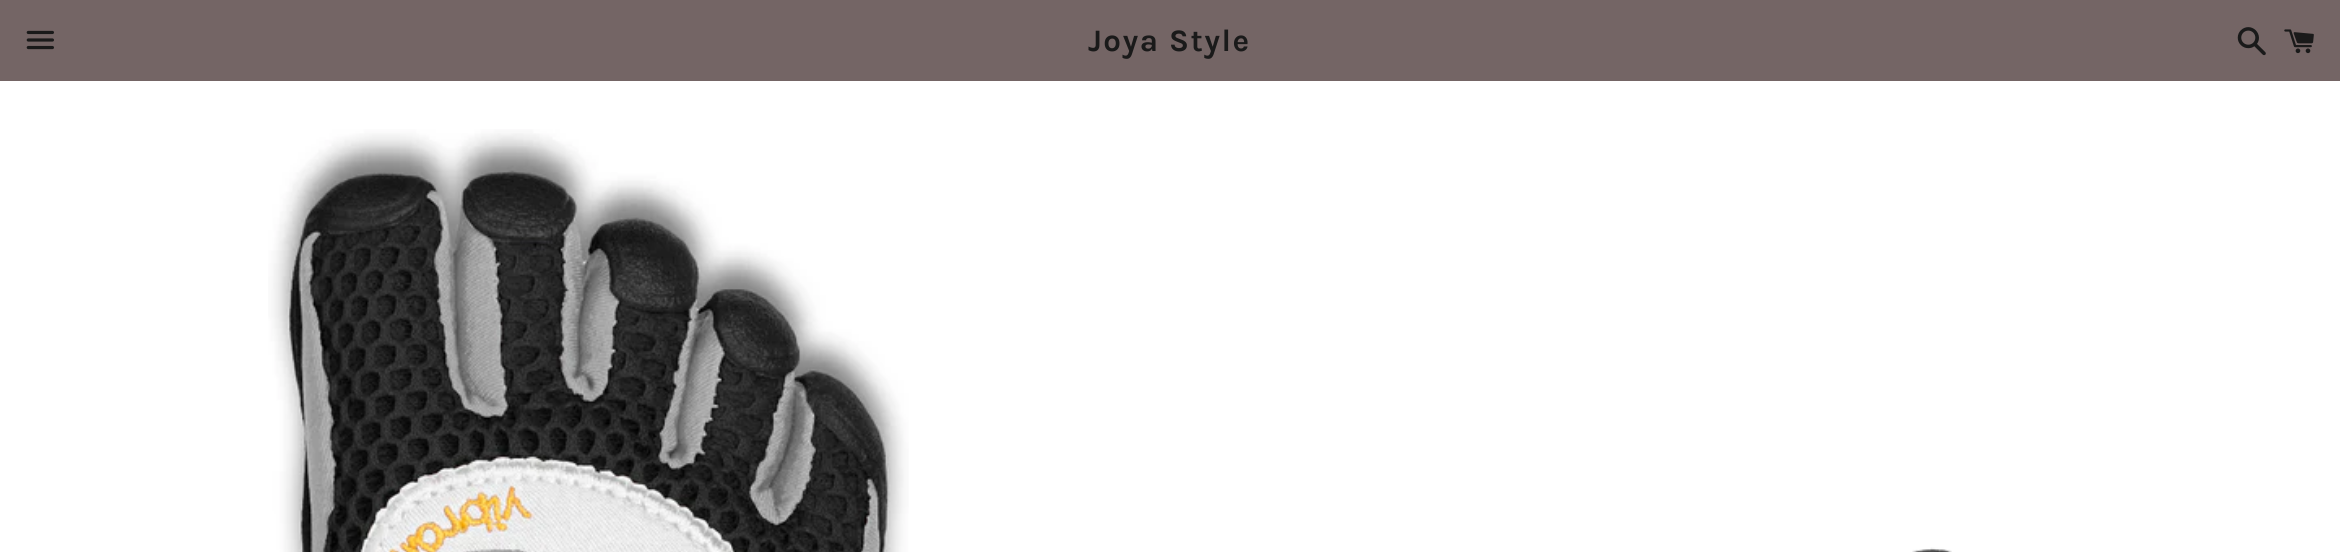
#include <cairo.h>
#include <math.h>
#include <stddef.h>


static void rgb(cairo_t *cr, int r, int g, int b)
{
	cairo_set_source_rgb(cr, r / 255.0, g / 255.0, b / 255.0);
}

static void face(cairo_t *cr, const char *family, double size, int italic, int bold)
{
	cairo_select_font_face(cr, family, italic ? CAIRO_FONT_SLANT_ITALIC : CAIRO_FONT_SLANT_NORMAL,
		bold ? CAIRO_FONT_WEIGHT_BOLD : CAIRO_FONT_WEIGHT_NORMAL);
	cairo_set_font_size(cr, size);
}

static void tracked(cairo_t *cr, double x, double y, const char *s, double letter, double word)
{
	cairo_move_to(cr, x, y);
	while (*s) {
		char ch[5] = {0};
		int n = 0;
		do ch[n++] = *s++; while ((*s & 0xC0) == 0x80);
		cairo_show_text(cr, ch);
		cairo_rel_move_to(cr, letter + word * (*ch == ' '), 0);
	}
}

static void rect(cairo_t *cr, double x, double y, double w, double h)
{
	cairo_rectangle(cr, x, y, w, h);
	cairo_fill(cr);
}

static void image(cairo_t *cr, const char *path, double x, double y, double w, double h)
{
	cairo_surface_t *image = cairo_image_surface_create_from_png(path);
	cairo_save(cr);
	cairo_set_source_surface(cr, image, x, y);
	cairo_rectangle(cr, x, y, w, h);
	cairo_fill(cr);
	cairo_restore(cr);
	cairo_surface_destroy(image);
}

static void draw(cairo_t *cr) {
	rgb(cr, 255, 255, 255);
	cairo_paint(cr);
	rgb(cr, 116, 101, 101);
	rect(cr, 0, 0, 2340, 81);
	image(cr, "image0.png", 26, 30, 28, 20);
	face(cr, "Karla", 31.25, 0, 1);
	rgb(cr, 26, 26, 26);
	tracked(cr, 1088, 51, "Joya Style", 1.5, 0);
	image(cr, "image1.png", 2237, 27, 29, 29);
	image(cr, "image2.png", 2284, 29, 30, 25);
	image(cr, "image3.png", 268, 129, 641, 423);
	image(cr, "image4.png", 1912, 547, 40, 5);
}

int main(void) {
	cairo_surface_t *surface = cairo_image_surface_create(CAIRO_FORMAT_RGB24, 2340, 552);
	cairo_t *cr = cairo_create(surface);
	cairo_font_options_t *options = cairo_font_options_create();
	cairo_font_options_set_hint_metrics(options, CAIRO_HINT_METRICS_OFF);
	cairo_font_options_set_hint_style(options, CAIRO_HINT_STYLE_NONE);
	cairo_set_font_options(cr, options);
	cairo_set_miter_limit(cr, 4);
	draw(cr);
	cairo_surface_write_to_png(surface, "render.png");
	cairo_font_options_destroy(options);
	cairo_destroy(cr);
	cairo_surface_destroy(surface);
	return 0;
}
